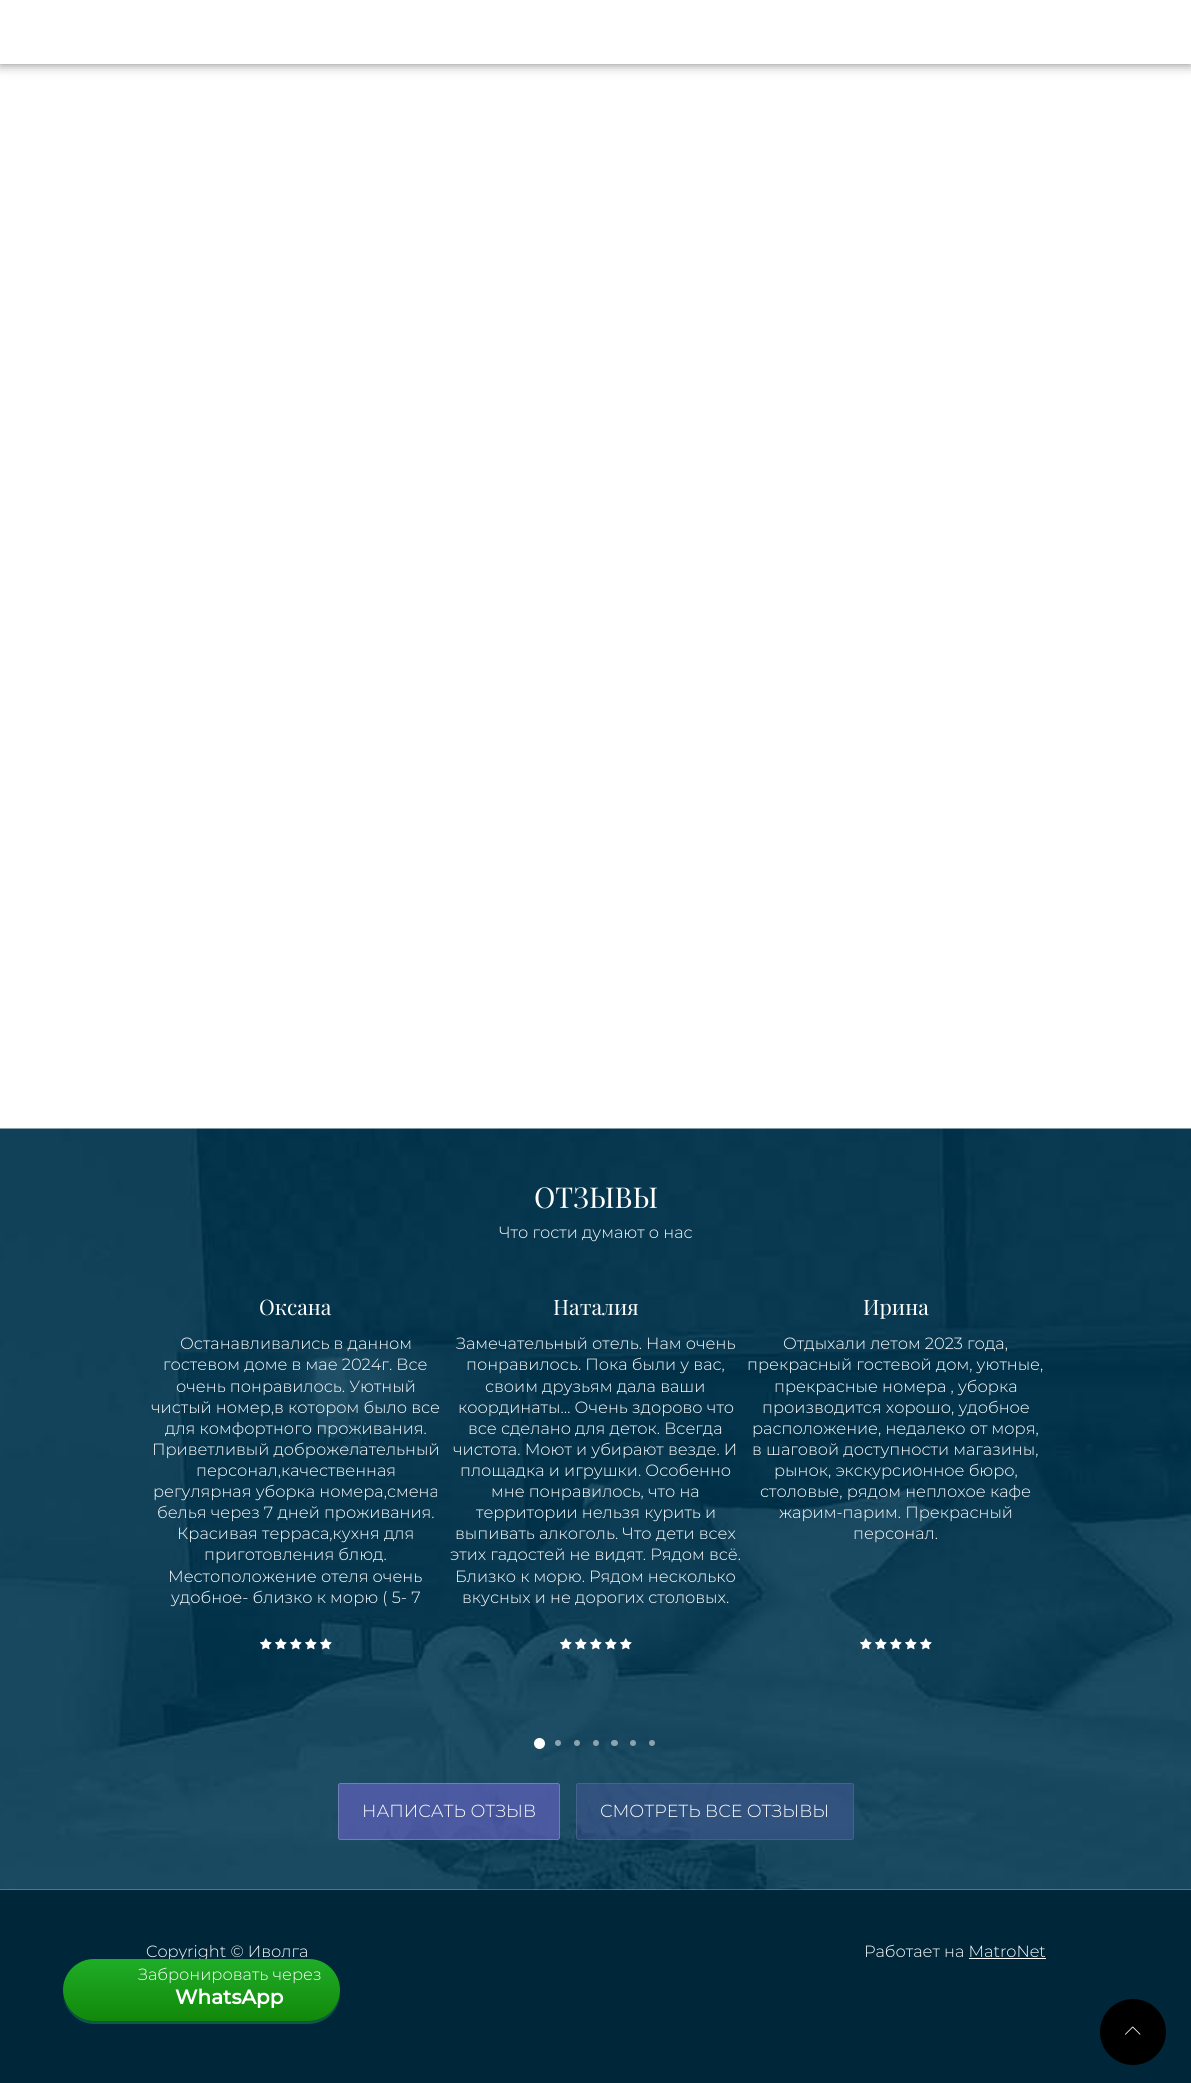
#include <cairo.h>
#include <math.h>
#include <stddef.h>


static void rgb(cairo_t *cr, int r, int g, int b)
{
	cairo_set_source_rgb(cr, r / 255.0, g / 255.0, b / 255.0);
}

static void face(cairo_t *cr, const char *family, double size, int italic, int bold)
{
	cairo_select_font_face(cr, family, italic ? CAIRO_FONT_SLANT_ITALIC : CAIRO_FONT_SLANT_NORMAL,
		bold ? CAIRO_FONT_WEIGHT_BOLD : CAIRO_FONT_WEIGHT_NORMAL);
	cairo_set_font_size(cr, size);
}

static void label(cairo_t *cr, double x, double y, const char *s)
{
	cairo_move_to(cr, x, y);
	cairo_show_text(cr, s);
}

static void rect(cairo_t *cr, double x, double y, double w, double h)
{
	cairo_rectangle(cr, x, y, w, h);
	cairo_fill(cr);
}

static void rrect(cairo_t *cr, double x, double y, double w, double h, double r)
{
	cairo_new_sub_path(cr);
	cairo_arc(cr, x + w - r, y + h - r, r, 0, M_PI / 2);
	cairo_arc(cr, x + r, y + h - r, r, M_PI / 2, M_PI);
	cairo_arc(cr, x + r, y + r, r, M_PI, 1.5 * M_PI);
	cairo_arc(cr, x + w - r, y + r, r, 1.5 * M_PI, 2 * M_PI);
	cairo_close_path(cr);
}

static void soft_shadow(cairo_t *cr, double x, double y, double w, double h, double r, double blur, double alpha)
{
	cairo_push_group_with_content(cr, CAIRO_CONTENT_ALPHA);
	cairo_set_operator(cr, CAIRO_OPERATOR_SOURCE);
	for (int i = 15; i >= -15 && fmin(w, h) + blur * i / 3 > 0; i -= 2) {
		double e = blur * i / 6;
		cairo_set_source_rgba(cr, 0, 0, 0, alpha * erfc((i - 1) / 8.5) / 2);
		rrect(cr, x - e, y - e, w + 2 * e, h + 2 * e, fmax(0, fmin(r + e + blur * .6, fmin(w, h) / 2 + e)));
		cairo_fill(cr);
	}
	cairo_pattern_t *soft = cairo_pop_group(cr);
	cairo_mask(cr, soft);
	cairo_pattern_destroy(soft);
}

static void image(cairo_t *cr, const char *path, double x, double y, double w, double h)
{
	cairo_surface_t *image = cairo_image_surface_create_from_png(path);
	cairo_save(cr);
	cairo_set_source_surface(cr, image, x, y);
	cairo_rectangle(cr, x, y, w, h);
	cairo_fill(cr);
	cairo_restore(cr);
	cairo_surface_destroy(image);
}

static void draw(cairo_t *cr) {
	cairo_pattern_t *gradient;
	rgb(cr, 255, 255, 255);
	cairo_paint(cr);
	cairo_save(cr);
	cairo_set_fill_rule(cr, CAIRO_FILL_RULE_EVEN_ODD);
	cairo_new_path(cr);
	cairo_move_to(cr, 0, 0);
	cairo_line_to(cr, 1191, 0);
	cairo_line_to(cr, 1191, 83);
	cairo_line_to(cr, 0, 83);
	cairo_close_path(cr);
	cairo_move_to(cr, 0, 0);
	cairo_line_to(cr, 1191, 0);
	cairo_line_to(cr, 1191, 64);
	cairo_line_to(cr, 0, 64);
	cairo_close_path(cr);
	cairo_clip(cr);
	rgb(cr, 0, 0, 0);
	soft_shadow(cr, 0, 0, 1191, 64, 0, 6, 0.5);
	cairo_restore(cr);
	cairo_set_source_rgba(cr, 1, 1, 1, 0.71);
	rect(cr, 0, 63, 1191, 1);
	image(cr, "image0.png", 0, 1128, 1191, 762);
	face(cr, "Playfair Display", 28.75, 0, 0);
	rgb(cr, 255, 255, 255);
	label(cr, 534, 1208, "ОТЗЫВЫ");
	face(cr, "Montserrat Light", 16.25, 0, 0);
	label(cr, 499, 1238, "Что гости думают о нас");
	face(cr, "Playfair Display", 21.25, 0, 0);
	label(cr, 259, 1315, "Оксана");
	face(cr, "Montserrat Light", 16.25, 0, 0);
	label(cr, 180, 1349, "Останавливались в данном");
	label(cr, 163, 1370, "гостевом доме в мае 2024г. Все");
	label(cr, 176, 1392, "очень понравилось. Уютный");
	label(cr, 151, 1413, "чистый номер,в котором было все");
	label(cr, 165, 1434, "для комфортного проживания.");
	label(cr, 152, 1455, "Приветливый доброжелательный");
	label(cr, 196, 1476, "персонал,качественная");
	label(cr, 153, 1497, "регулярная уборка номера,смена");
	label(cr, 157, 1518, "белья через 7 дней проживания.");
	label(cr, 177, 1539, "Красивая терраса,кухня для");
	label(cr, 204, 1560, "приготовления блюд.");
	label(cr, 168, 1582, "Местоположение отеля очень");
	label(cr, 171, 1603, "удобное- близко к морю ( 5- 7");
	image(cr, "image1.png", 260, 1638, 12, 12);
	image(cr, "image2.png", 275, 1638, 12, 12);
	image(cr, "image3.png", 290, 1638, 12, 12);
	image(cr, "image4.png", 305, 1638, 12, 12);
	image(cr, "image5.png", 320, 1638, 12, 12);
	face(cr, "Playfair Display", 21.25, 0, 0);
	label(cr, 553, 1315, "Наталия");
	face(cr, "Montserrat Light", 16.25, 0, 0);
	label(cr, 456, 1349, "Замечательный отель. Нам очень");
	label(cr, 466, 1370, "понравилось. Пока были у вас,");
	label(cr, 485, 1392, "своим друзьям дала ваши");
	label(cr, 458, 1413, "координаты… Очень здорово что");
	label(cr, 468, 1434, "все сделано для деток. Всегда");
	label(cr, 453, 1455, "чистота. Моют и убирают везде. И");
	label(cr, 460, 1476, "площадка и игрушки. Особенно");
	label(cr, 491, 1497, "мне понравилось, что на");
	label(cr, 476, 1518, "территории нельзя курить и");
	label(cr, 455, 1539, "выпивать алкоголь. Что дети всех");
	label(cr, 450, 1560, "этих гадостей не видят. Рядом всё.");
	label(cr, 455, 1582, "Близко к морю. Рядом несколько");
	label(cr, 462, 1603, "вкусных и не дорогих столовых.");
	image(cr, "image6.png", 560, 1638, 12, 12);
	image(cr, "image7.png", 575, 1638, 12, 12);
	image(cr, "image8.png", 590, 1638, 12, 12);
	image(cr, "image9.png", 605, 1638, 12, 12);
	image(cr, "image10.png", 620, 1638, 12, 12);
	face(cr, "Playfair Display", 21.25, 0, 0);
	label(cr, 863, 1315, "Ирина");
	face(cr, "Montserrat Light", 16.25, 0, 0);
	label(cr, 783, 1349, "Отдыхали летом 2023 года,");
	label(cr, 747, 1370, "прекрасный гостевой дом, уютные,");
	label(cr, 774, 1392, "прекрасные номера , уборка");
	label(cr, 762, 1413, "производится хорошо, удобное");
	label(cr, 752, 1434, "расположение, недалеко от моря,");
	label(cr, 752, 1455, "в шаговой доступности магазины,");
	label(cr, 774, 1476, "рынок, экскурсионное бюро,");
	label(cr, 760, 1497, "столовые, рядом неплохое кафе");
	label(cr, 779, 1518, "жарим-парим. Прекрасный");
	label(cr, 853, 1539, "персонал.");
	image(cr, "image11.png", 860, 1638, 12, 12);
	image(cr, "image12.png", 875, 1638, 12, 12);
	image(cr, "image13.png", 890, 1638, 12, 12);
	image(cr, "image14.png", 905, 1638, 12, 12);
	image(cr, "image15.png", 920, 1638, 12, 12);
	cairo_arc(cr, 539.5, 1743.5, 5.5, 0, 2 * M_PI);
	cairo_fill(cr);
	cairo_set_source_rgba(cr, 1, 1, 1, 0.5);
	cairo_arc(cr, 558, 1743, 3, 0, 2 * M_PI);
	cairo_fill(cr);
	cairo_arc(cr, 577, 1743, 3, 0, 2 * M_PI);
	cairo_fill(cr);
	cairo_arc(cr, 596, 1743, 3, 0, 2 * M_PI);
	cairo_fill(cr);
	rgb(cr, 140, 164, 175);
	rrect(cr, 611, 1740, 7, 6, 3);
	cairo_fill(cr);
	cairo_set_source_rgba(cr, 1, 1, 1, 0.5);
	cairo_arc(cr, 633, 1743, 3, 0, 2 * M_PI);
	cairo_fill(cr);
	rgb(cr, 138, 162, 174);
	cairo_arc(cr, 652, 1743, 3, 0, 2 * M_PI);
	cairo_fill(cr);
	cairo_set_source_rgba(cr, 0.365, 0.376, 0.718, 0.73);
	rrect(cr, 338, 1783, 222, 57, 2.5);
	cairo_fill(cr);
	rrect(cr, 338.5, 1783.5, 221, 56, 2);
	cairo_set_source_rgba(cr, 1, 1, 1, 0.21);
	cairo_set_line_width(cr, 1);
	cairo_stroke(cr);
	face(cr, "Montserrat Light", 17.5, 0, 0);
	rgb(cr, 255, 255, 255);
	label(cr, 362, 1817, "НАПИСАТЬ ОТЗЫВ");
	cairo_set_source_rgba(cr, 0.298, 0.357, 0.627, 0.45);
	rrect(cr, 576, 1783, 278, 57, 2.5);
	cairo_fill(cr);
	rrect(cr, 576.5, 1783.5, 277, 56, 2);
	cairo_set_source_rgba(cr, 1, 1, 1, 0.09);
	cairo_stroke(cr);
	rgb(cr, 255, 255, 255);
	label(cr, 600, 1817, "СМОТРЕТЬ ВСЕ ОТЗЫВЫ");
	rgb(cr, 0, 38, 57);
	rect(cr, 0, 1890, 1191, 193);
	face(cr, "Montserrat Light", 16.25, 0, 0);
	rgb(cr, 255, 255, 255);
	label(cr, 146, 1957, "Copyright © Иволга");
	label(cr, 864, 1957, "Работает на MatroNet");
	rect(cr, 969, 1958, 77, 1);
	rgb(cr, 0, 0, 0);
	cairo_new_path(cr);
	cairo_arc(cr, 1133, 2032, 33, 0, 2 * M_PI);
	cairo_fill(cr);
	image(cr, "image16.png", 1125, 2026, 16, 9);
	rgb(cr, 10, 90, 70);
	cairo_new_path(cr);
	cairo_move_to(cr, 63, 1997);
	cairo_curve_to(cr, 66, 2012, 79, 2024, 94, 2024);
	cairo_line_to(cr, 308, 2024);
	cairo_curve_to(cr, 326, 2024, 340, 2010, 340, 1992);
	cairo_line_to(cr, 340, 1991);
	cairo_curve_to(cr, 339, 2008, 326, 2021, 309, 2021);
	cairo_line_to(cr, 94, 2021);
	cairo_curve_to(cr, 79, 2021, 67, 2011, 63, 1997);
	cairo_close_path(cr);
	cairo_fill(cr);
	gradient = cairo_pattern_create_linear(201, 1959, 201, 2021);
	cairo_pattern_add_color_stop_rgba(gradient, 0, 0.122, 0.678, 0.157, 1);
	cairo_pattern_add_color_stop_rgba(gradient, 1, 0.071, 0.533, 0.039, 1);
	cairo_set_source(cr, gradient);
	cairo_pattern_destroy(gradient);
	rrect(cr, 63, 1959, 277, 62, 31);
	cairo_fill(cr);
	rgb(cr, 255, 255, 255);
	label(cr, 138, 1980, "Забронировать через");
	face(cr, "Montserrat", 20, 0, 1);
	label(cr, 175, 2004, "WhatsApp");
}

int main(void) {
	cairo_surface_t *surface = cairo_image_surface_create(CAIRO_FORMAT_RGB24, 1191, 2083);
	cairo_t *cr = cairo_create(surface);
	cairo_font_options_t *options = cairo_font_options_create();
	cairo_font_options_set_hint_metrics(options, CAIRO_HINT_METRICS_OFF);
	cairo_font_options_set_hint_style(options, CAIRO_HINT_STYLE_NONE);
	cairo_set_font_options(cr, options);
	cairo_set_miter_limit(cr, 4);
	draw(cr);
	cairo_surface_write_to_png(surface, "render.png");
	cairo_font_options_destroy(options);
	cairo_destroy(cr);
	cairo_surface_destroy(surface);
	return 0;
}
